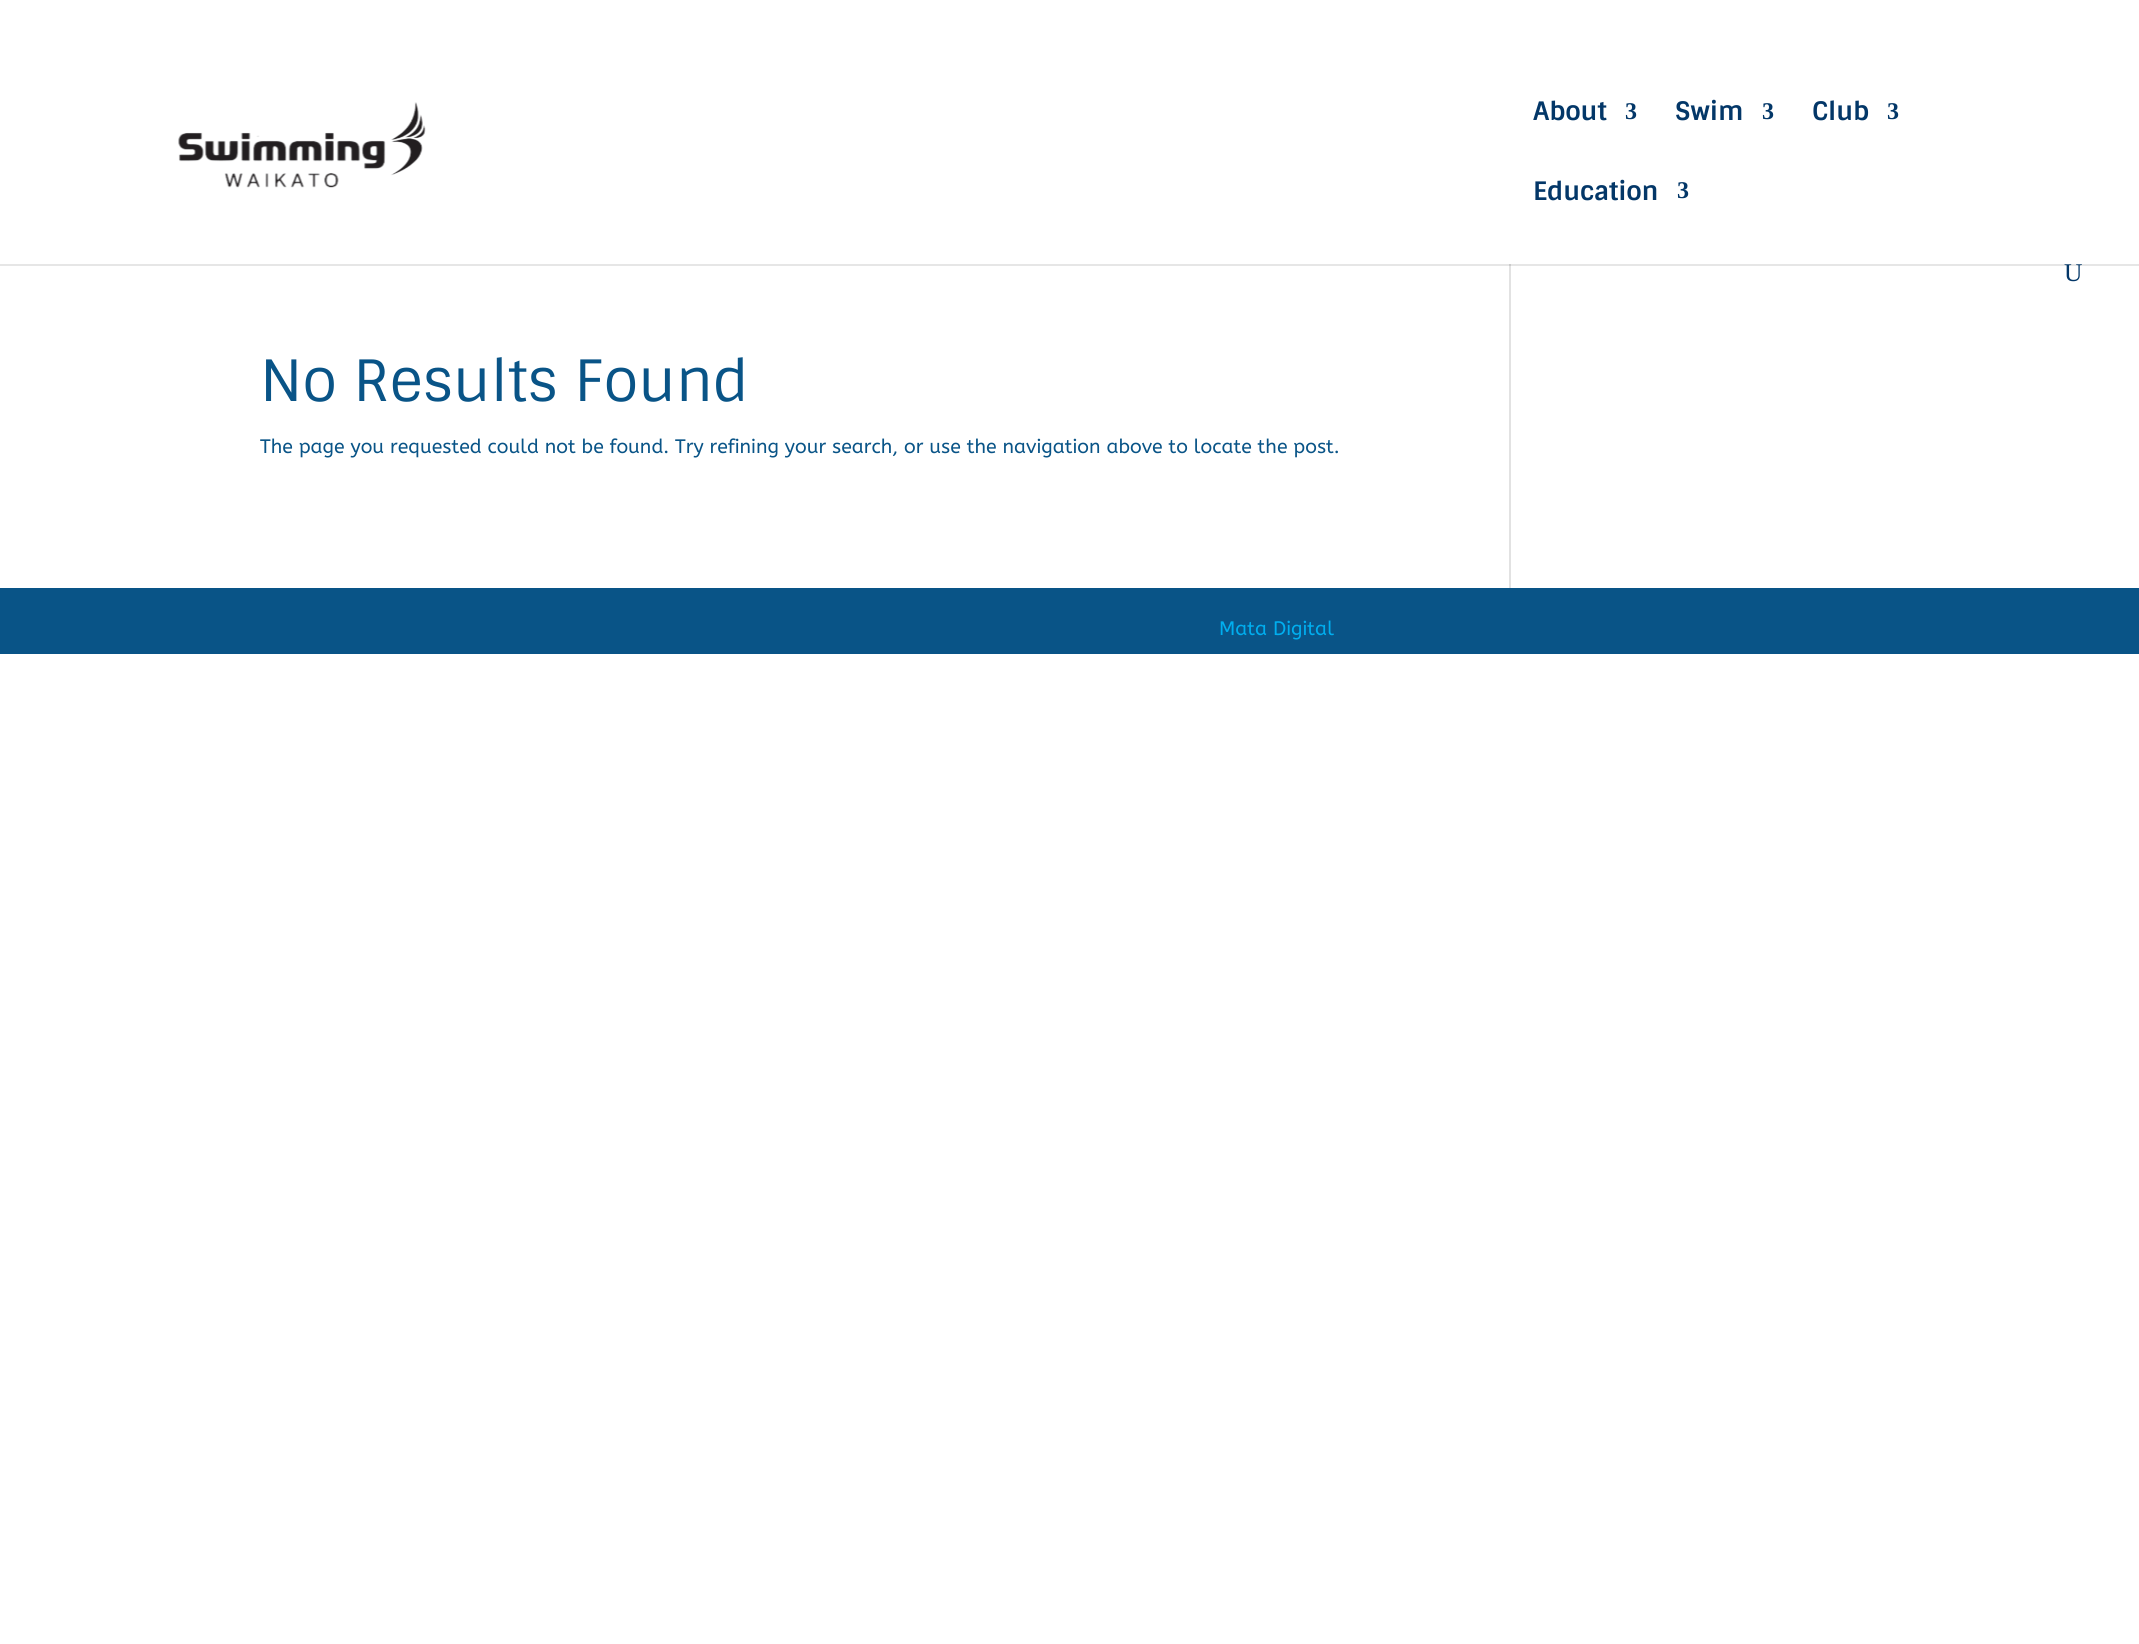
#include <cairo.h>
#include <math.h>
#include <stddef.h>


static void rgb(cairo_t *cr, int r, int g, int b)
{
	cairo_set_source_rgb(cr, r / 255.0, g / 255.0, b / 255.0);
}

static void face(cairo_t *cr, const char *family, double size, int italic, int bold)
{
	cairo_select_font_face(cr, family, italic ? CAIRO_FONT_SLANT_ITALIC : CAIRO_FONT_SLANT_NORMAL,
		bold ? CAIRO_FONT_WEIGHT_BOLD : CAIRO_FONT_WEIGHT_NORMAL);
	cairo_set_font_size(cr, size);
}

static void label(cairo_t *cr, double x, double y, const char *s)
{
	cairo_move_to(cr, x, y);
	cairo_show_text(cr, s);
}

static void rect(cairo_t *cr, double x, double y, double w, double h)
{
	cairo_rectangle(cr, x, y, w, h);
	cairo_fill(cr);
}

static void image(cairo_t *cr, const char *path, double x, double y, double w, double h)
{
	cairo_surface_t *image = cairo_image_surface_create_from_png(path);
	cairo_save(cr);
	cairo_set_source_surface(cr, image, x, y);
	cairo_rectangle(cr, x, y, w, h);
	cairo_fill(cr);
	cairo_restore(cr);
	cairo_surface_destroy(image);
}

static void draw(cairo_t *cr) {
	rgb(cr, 255, 255, 255);
	cairo_paint(cr);
	rgb(cr, 230, 230, 230);
	rect(cr, 0, 264, 2139, 2);
	image(cr, "image0.png", 178, 102, 248, 86);
	face(cr, "Sintony", 25.5, 0, 1);
	rgb(cr, 3, 55, 104);
	label(cr, 1533, 120, "About");
	face(cr, "Liberation Serif", 24, 0, 1);
	label(cr, 1625, 119, "3");
	face(cr, "Sintony", 25.5, 0, 1);
	label(cr, 1675, 120, "Swim");
	face(cr, "Liberation Serif", 24, 0, 1);
	label(cr, 1762, 119, "3");
	face(cr, "Sintony", 25.5, 0, 1);
	label(cr, 1812, 120, "Club");
	face(cr, "Liberation Serif", 24, 0, 1);
	label(cr, 1887, 119, "3");
	face(cr, "Sintony", 25.5, 0, 1);
	label(cr, 1533, 200, "Education");
	face(cr, "Liberation Serif", 24, 0, 1);
	label(cr, 1677, 198, "3");
	face(cr, "Liberation Serif", 25.5, 0, 0);
	label(cr, 2064, 281, "U");
	face(cr, "Sintony", 57, 0, 0);
	rgb(cr, 9, 84, 135);
	label(cr, 260, 401, "No Results Found");
	face(cr, "ABeeZee", 19.5, 0, 0);
	label(cr, 260, 453, "The page you requested could not be found. Try refining your search, or use the navigation above to locate the post.");
	rgb(cr, 226, 226, 226);
	rect(cr, 1509, 264, 2, 324);
	rgb(cr, 203, 203, 203);
	rect(cr, 1509, 264, 2, 2);
	rgb(cr, 9, 84, 135);
	rect(cr, 0, 588, 2139, 66);
	rgb(cr, 0, 174, 239);
	label(cr, 1219, 635, "Mata Digital");
}

int main(void) {
	cairo_surface_t *surface = cairo_image_surface_create(CAIRO_FORMAT_RGB24, 2139, 1644);
	cairo_t *cr = cairo_create(surface);
	cairo_font_options_t *options = cairo_font_options_create();
	cairo_font_options_set_hint_metrics(options, CAIRO_HINT_METRICS_OFF);
	cairo_font_options_set_hint_style(options, CAIRO_HINT_STYLE_NONE);
	cairo_set_font_options(cr, options);
	cairo_set_miter_limit(cr, 4);
	draw(cr);
	cairo_surface_write_to_png(surface, "render.png");
	cairo_font_options_destroy(options);
	cairo_destroy(cr);
	cairo_surface_destroy(surface);
	return 0;
}
